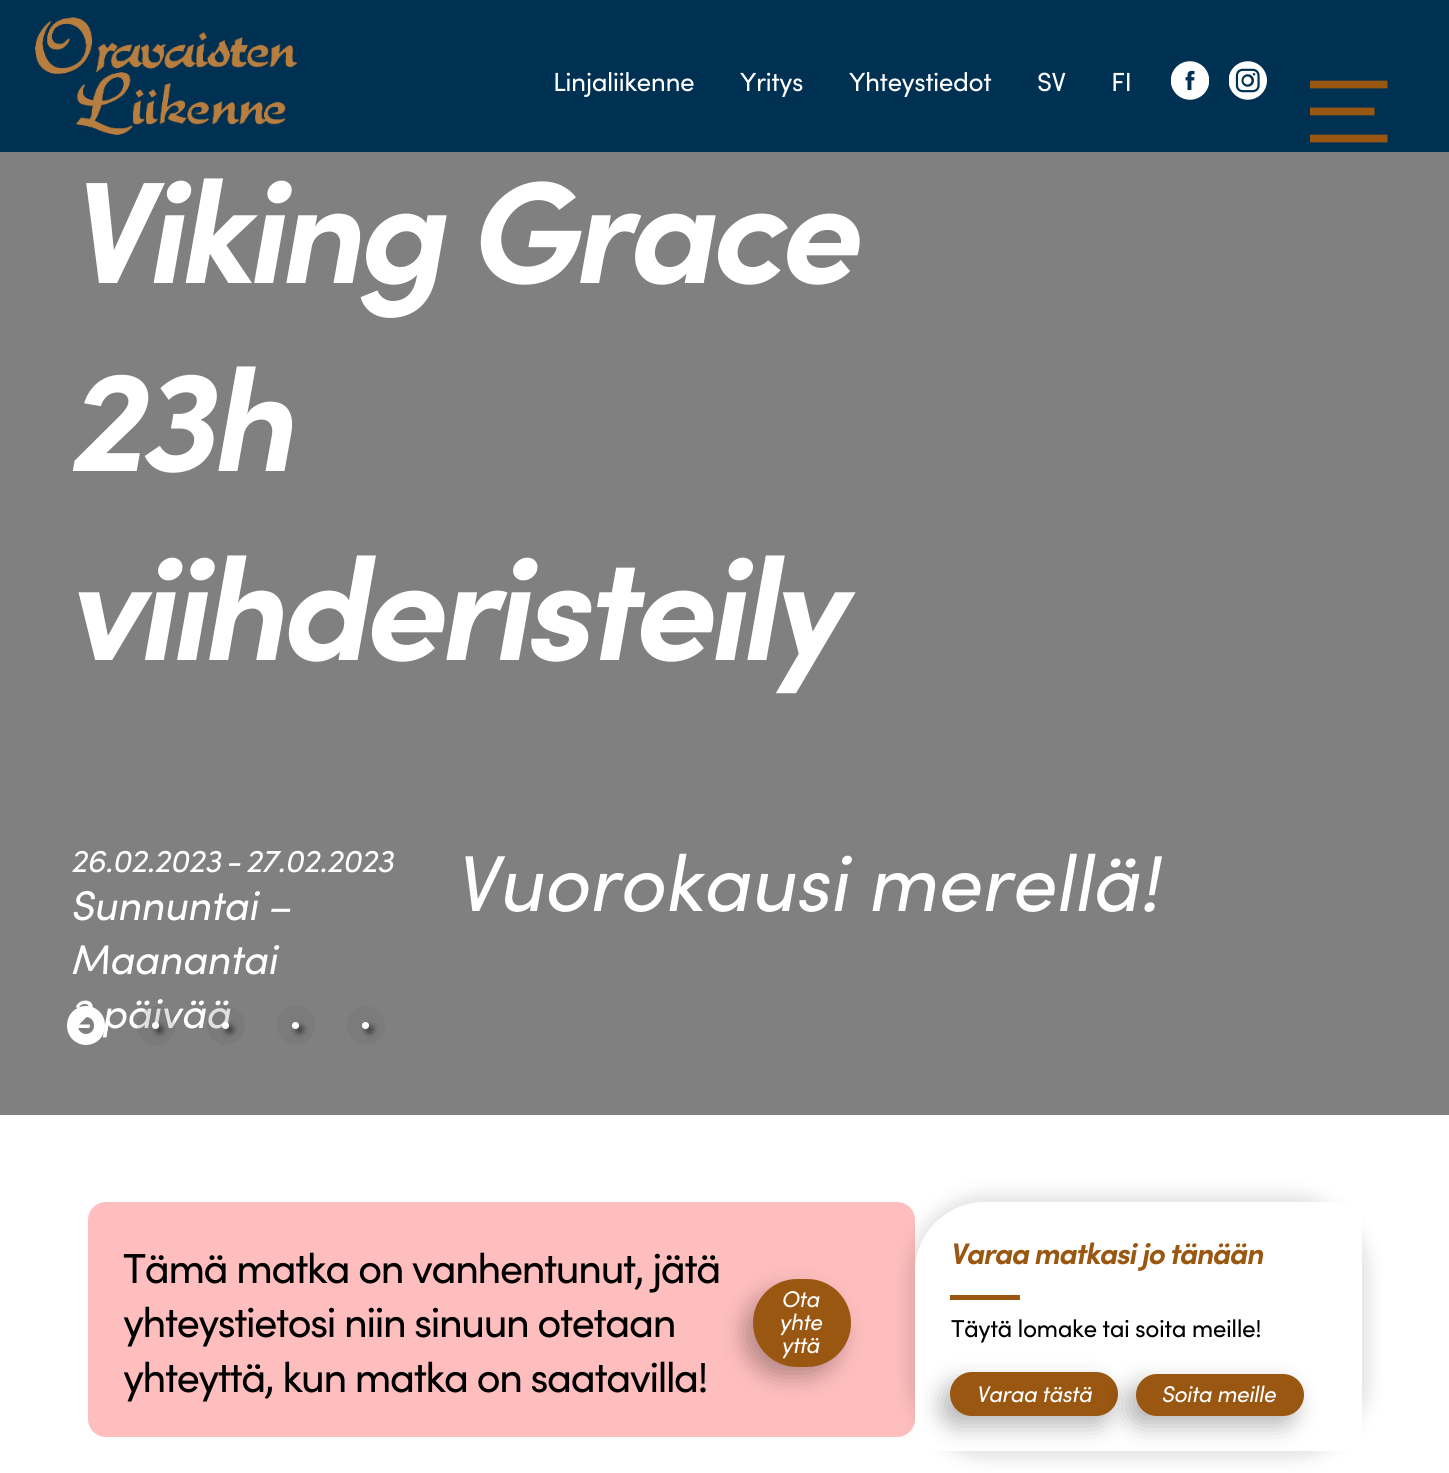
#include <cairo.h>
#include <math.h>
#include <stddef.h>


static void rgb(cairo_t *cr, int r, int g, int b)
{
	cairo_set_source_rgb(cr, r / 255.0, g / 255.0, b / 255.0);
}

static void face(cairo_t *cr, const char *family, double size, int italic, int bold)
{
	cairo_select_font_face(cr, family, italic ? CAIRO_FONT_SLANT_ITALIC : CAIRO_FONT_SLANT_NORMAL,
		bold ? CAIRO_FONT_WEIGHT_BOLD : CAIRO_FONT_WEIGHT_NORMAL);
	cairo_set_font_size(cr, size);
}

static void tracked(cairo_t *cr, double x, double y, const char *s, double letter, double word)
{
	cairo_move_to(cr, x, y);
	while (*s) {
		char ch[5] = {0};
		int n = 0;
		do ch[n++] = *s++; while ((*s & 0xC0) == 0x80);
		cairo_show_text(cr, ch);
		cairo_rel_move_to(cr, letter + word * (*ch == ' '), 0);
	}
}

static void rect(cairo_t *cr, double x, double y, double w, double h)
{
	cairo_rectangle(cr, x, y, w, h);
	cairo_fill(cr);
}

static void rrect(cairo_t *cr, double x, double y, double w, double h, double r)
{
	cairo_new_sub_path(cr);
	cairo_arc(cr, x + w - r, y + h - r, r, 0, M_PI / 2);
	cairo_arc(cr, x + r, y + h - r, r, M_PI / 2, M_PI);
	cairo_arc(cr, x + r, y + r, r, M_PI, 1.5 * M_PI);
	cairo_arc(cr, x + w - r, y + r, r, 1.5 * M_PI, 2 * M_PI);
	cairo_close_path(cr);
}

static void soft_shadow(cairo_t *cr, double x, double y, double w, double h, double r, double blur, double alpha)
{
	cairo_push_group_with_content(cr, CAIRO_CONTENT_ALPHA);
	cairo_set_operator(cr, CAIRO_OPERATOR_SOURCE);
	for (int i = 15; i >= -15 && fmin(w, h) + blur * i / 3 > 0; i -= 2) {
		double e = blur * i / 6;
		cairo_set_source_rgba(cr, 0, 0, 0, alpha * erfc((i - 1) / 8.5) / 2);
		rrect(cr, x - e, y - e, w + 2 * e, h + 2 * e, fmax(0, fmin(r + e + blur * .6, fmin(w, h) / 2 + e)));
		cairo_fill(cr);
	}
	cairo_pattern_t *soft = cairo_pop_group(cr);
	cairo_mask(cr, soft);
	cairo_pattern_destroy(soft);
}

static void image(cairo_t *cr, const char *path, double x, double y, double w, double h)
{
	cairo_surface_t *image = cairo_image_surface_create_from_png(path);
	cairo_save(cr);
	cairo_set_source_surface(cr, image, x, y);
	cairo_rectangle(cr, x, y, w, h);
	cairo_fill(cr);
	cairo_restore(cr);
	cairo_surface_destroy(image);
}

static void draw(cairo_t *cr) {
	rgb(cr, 255, 255, 255);
	cairo_paint(cr);
	rgb(cr, 0, 49, 83);
	rect(cr, 0, 0, 1449, 152);
	image(cr, "image0.png", 35, 17, 263, 118);
	face(cr, "Sofia", 26.25, 0, 0);
	rgb(cr, 255, 255, 255);
	tracked(cr, 553, 91, "Linjaliikenne", -0.5, 0);
	tracked(cr, 740, 91, "Yritys", -0.5, 0);
	tracked(cr, 849, 91, "Yhteystiedot", -0.5, 0);
	tracked(cr, 1037, 91, "SV", -0.5, 0);
	tracked(cr, 1111, 91, "FI", -0.5, 0);
	image(cr, "image1.png", 1171, 61, 38, 39);
	image(cr, "image2.png", 1229, 61, 38, 39);
	cairo_new_path(cr);
	cairo_move_to(cr, 1310, 84.5);
	cairo_line_to(cr, 1387.5, 84.5);
	rgb(cr, 154, 87, 17);
	cairo_set_line_width(cr, 7.7);
	cairo_stroke(cr);
	cairo_new_path(cr);
	cairo_move_to(cr, 1310, 111.5);
	cairo_line_to(cr, 1374.5, 111.5);
	cairo_stroke(cr);
	cairo_new_path(cr);
	cairo_move_to(cr, 1310, 138.5);
	cairo_line_to(cr, 1387.5, 138.5);
	cairo_stroke(cr);
	rgb(cr, 128, 128, 128);
	rect(cr, 0, 152, 1449, 963);
	face(cr, "Sofia", 145, 1, 1);
	rgb(cr, 255, 255, 255);
	tracked(cr, 72, 283, "Viking Grace", -6, 0);
	tracked(cr, 72, 471, "23h", -6, 0);
	tracked(cr, 72, 660, "viihderisteily", -6, 0);
	face(cr, "Sofia", 32, 1, 0);
	tracked(cr, 72, 872, "26.02.2023", -0.5, 0);
	tracked(cr, 227, 872, "-", -0.5, 0);
	tracked(cr, 247, 872, "27.02.2023", -0.5, 0);
	face(cr, "Sofia", 41.5, 1, 0);
	tracked(cr, 72, 920, "Sunnuntai –", -0.5, 0);
	tracked(cr, 72, 974, "Maanantai", -0.5, 0);
	tracked(cr, 72, 1028, "2 päivää", -0.5, 0);
	face(cr, "Sofia", 79.4, 1, 0);
	tracked(cr, 457, 911, "Vuorokausi merellä!", -0.5, 0);
	cairo_save(cr);
	rrect(cr, 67, 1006, 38, 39, 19);
	cairo_clip(cr);
	cairo_set_fill_rule(cr, CAIRO_FILL_RULE_EVEN_ODD);
	cairo_new_path(cr);
	cairo_move_to(cr, 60, 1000);
	cairo_line_to(cr, 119, 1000);
	cairo_line_to(cr, 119, 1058);
	cairo_line_to(cr, 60, 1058);
	cairo_close_path(cr);
	cairo_move_to(cr, 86, 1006);
	cairo_curve_to(cr, 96.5, 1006, 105, 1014.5, 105, 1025);
	cairo_line_to(cr, 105, 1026);
	cairo_curve_to(cr, 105, 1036.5, 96.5, 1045, 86, 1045);
	cairo_curve_to(cr, 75.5, 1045, 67, 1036.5, 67, 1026);
	cairo_line_to(cr, 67, 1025);
	cairo_curve_to(cr, 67, 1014.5, 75.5, 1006, 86, 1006);
	cairo_close_path(cr);
	cairo_clip(cr);
	rgb(cr, 0, 0, 0);
	soft_shadow(cr, 70, 1010, 39, 38, 19, 3, 0.5);
	cairo_restore(cr);
	rrect(cr, 72.5, 1011.5, 27, 28, 13.5);
	cairo_set_line_width(cr, 11);
	cairo_stroke(cr);
	cairo_set_source_rgba(cr, 0.4, 0.4, 0.4, 0.2);
	rrect(cr, 137, 1006, 38, 39, 19);
	cairo_fill(cr);
	rgb(cr, 0, 0, 0);
	soft_shadow(cr, 156, 1026, 7, 7, 3.5, 3, 0.5);
	rgb(cr, 255, 255, 255);
	cairo_arc(cr, 155.5, 1025.5, 3.5, 0, 2 * M_PI);
	cairo_fill(cr);
	cairo_set_source_rgba(cr, 0.4, 0.4, 0.4, 0.2);
	rrect(cr, 207, 1006, 38, 39, 19);
	cairo_fill(cr);
	rgb(cr, 0, 0, 0);
	soft_shadow(cr, 226, 1026, 7, 7, 3.5, 3, 0.5);
	rgb(cr, 255, 255, 255);
	cairo_arc(cr, 225.5, 1025.5, 3.5, 0, 2 * M_PI);
	cairo_fill(cr);
	rgb(cr, 123, 123, 123);
	rrect(cr, 277, 1006, 38, 39, 19);
	cairo_fill(cr);
	rgb(cr, 0, 0, 0);
	soft_shadow(cr, 296, 1026, 7, 7, 3.5, 3, 0.5);
	rgb(cr, 255, 255, 255);
	cairo_arc(cr, 295.5, 1025.5, 3.5, 0, 2 * M_PI);
	cairo_fill(cr);
	rgb(cr, 123, 123, 123);
	rrect(cr, 347, 1006, 38, 39, 19);
	cairo_fill(cr);
	rgb(cr, 0, 0, 0);
	soft_shadow(cr, 366, 1026, 7, 7, 3.5, 3, 0.5);
	rgb(cr, 255, 255, 255);
	cairo_arc(cr, 365.5, 1025.5, 3.5, 0, 2 * M_PI);
	cairo_fill(cr);
	rgb(cr, 255, 190, 190);
	rrect(cr, 88, 1202, 827, 235, 18);
	cairo_fill(cr);
	face(cr, "Sofia", 42, 0, 0);
	rgb(cr, 0, 0, 0);
	tracked(cr, 123, 1283, "Tämä matka on vanhentunut, jätä", -1.75, 0);
	tracked(cr, 123, 1337, "yhteystietosi niin sinuun otetaan", -1.75, 0);
	tracked(cr, 123, 1392, "yhteyttä, kun matka on saatavilla!", -1.75, 0);
	rgb(cr, 0, 0, 0);
	soft_shadow(cr, 744, 1290, 98, 87, 43.5, 11.5, 0.28);
	rgb(cr, 154, 87, 17);
	rrect(cr, 753, 1279, 98, 88, 44);
	cairo_fill(cr);
	face(cr, "Sofia", 22.75, 1, 0);
	rgb(cr, 255, 255, 255);
	tracked(cr, 782, 1307, "Ota", -0.5, 0);
	tracked(cr, 780, 1330, "yhte", -0.5, 0);
	tracked(cr, 782, 1353, "yttä", -0.5, 0);
	cairo_save(cr);
	cairo_set_fill_rule(cr, CAIRO_FILL_RULE_EVEN_ODD);
	cairo_new_path(cr);
	cairo_move_to(cr, 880, 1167);
	cairo_line_to(cr, 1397, 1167);
	cairo_line_to(cr, 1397, 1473);
	cairo_line_to(cr, 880, 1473);
	cairo_close_path(cr);
	cairo_move_to(cr, 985, 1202);
	cairo_line_to(cr, 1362, 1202);
	cairo_line_to(cr, 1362, 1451);
	cairo_line_to(cr, 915, 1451);
	cairo_line_to(cr, 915, 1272);
	cairo_curve_to(cr, 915, 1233.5, 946.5, 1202, 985, 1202);
	cairo_close_path(cr);
	cairo_clip(cr);
	rgb(cr, 0, 0, 0);
	soft_shadow(cr, 908, 1195, 461, 263, 77, 9, 0.12);
	cairo_restore(cr);
	face(cr, "Sofia", 29.75, 1, 1);
	rgb(cr, 154, 87, 17);
	tracked(cr, 951, 1264, "Varaa matkasi jo tänään", -1.25, 0);
	rect(cr, 950, 1295, 70, 5);
	face(cr, "Sofia", 24.5, 0, 0);
	rgb(cr, 0, 0, 0);
	tracked(cr, 951, 1337, "Täytä lomake tai soita meille!", -0.5, 0);
	rgb(cr, 0, 0, 0);
	soft_shadow(cr, 942, 1383, 168, 43, 21.5, 11.5, 0.28);
	rgb(cr, 154, 87, 17);
	rrect(cr, 950, 1372, 168, 44, 22);
	cairo_fill(cr);
	face(cr, "Sofia", 22.75, 1, 0);
	rgb(cr, 255, 255, 255);
	tracked(cr, 977, 1402, "Varaa tästä", -0.5, 0);
	rgb(cr, 0, 0, 0);
	soft_shadow(cr, 1127, 1384, 168, 42, 21, 11.5, 0.28);
	rgb(cr, 154, 87, 17);
	rrect(cr, 1136, 1374, 168, 42, 21);
	cairo_fill(cr);
	rgb(cr, 255, 255, 255);
	tracked(cr, 1162, 1402, "Soita meille", -0.5, 0);
}

int main(void) {
	cairo_surface_t *surface = cairo_image_surface_create(CAIRO_FORMAT_RGB24, 1449, 1473);
	cairo_t *cr = cairo_create(surface);
	cairo_font_options_t *options = cairo_font_options_create();
	cairo_font_options_set_hint_metrics(options, CAIRO_HINT_METRICS_OFF);
	cairo_font_options_set_hint_style(options, CAIRO_HINT_STYLE_NONE);
	cairo_set_font_options(cr, options);
	cairo_set_miter_limit(cr, 4);
	draw(cr);
	cairo_surface_write_to_png(surface, "render.png");
	cairo_font_options_destroy(options);
	cairo_destroy(cr);
	cairo_surface_destroy(surface);
	return 0;
}
